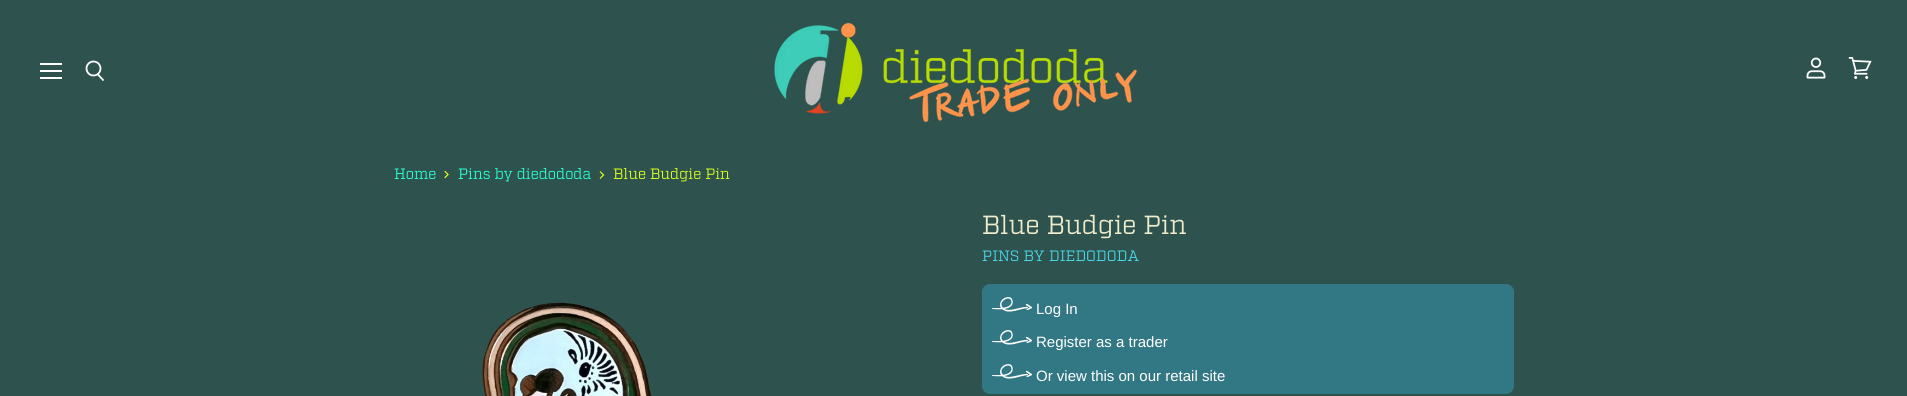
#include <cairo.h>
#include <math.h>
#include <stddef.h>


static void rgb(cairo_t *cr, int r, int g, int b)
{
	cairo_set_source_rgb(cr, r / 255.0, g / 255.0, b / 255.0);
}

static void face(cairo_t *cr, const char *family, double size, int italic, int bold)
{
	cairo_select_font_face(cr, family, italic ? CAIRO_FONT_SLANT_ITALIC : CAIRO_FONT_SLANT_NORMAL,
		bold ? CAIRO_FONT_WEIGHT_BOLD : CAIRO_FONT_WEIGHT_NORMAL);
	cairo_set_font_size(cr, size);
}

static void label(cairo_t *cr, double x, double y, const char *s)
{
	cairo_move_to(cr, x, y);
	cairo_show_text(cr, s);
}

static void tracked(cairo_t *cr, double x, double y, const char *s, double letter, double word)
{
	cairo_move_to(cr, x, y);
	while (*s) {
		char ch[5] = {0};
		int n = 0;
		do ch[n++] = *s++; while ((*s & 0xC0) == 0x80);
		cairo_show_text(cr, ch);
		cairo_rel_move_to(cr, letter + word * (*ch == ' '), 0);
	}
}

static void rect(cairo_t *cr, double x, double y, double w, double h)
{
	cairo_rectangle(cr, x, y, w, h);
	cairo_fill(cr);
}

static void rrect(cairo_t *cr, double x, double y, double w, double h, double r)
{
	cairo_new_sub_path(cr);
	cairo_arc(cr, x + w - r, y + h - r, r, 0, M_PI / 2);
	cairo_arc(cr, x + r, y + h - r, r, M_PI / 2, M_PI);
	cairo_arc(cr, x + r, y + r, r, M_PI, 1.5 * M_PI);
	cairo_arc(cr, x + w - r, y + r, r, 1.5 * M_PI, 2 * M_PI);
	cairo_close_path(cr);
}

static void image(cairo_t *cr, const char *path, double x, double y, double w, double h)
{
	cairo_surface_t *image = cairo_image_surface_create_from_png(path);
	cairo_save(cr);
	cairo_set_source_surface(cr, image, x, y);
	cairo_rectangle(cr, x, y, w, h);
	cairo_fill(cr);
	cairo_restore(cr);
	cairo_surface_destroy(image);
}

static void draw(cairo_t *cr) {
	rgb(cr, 46, 82, 77);
	cairo_paint(cr);
	rgb(cr, 255, 255, 255);
	rect(cr, 40, 63, 22, 2);
	rect(cr, 40, 70, 22, 2);
	rect(cr, 40, 77, 22, 2);
	cairo_new_path(cr);
	cairo_move_to(cr, 103.5, 80.5);
	cairo_line_to(cr, 97.5, 74);
	cairo_set_line_width(cr, 1.8);
	cairo_stroke(cr);
	cairo_arc(cr, 93.5, 68.5, 7, 0, 2 * M_PI);
	cairo_stroke(cr);
	image(cr, "image0.png", 774, 22, 363, 101);
	image(cr, "image1.png", 1806, 57, 20, 22);
	image(cr, "image2.png", 1848, 57, 24, 22);
	face(cr, "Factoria", 15, 0, 0);
	rgb(cr, 43, 255, 207);
	label(cr, 394, 179, "Home");
	cairo_save(cr);
	cairo_new_path(cr);
	cairo_move_to(cr, 444.5, 179);
	cairo_line_to(cr, 444.5, 171);
	cairo_line_to(cr, 449.5, 171);
	cairo_line_to(cr, 449.5, 179);
	cairo_close_path(cr);
	cairo_clip(cr);
	cairo_new_path(cr);
	cairo_move_to(cr, 444.5, 178);
	cairo_line_to(cr, 448, 174.5);
	cairo_line_to(cr, 444.5, 171);
	rgb(cr, 217, 255, 32);
	cairo_set_line_width(cr, 1.2);
	cairo_stroke(cr);
	cairo_restore(cr);
	label(cr, 458, 179, "Pins by diedododa");
	cairo_save(cr);
	cairo_new_path(cr);
	cairo_move_to(cr, 599.5, 179);
	cairo_line_to(cr, 599.5, 171);
	cairo_line_to(cr, 604.5, 171);
	cairo_line_to(cr, 604.5, 179);
	cairo_close_path(cr);
	cairo_clip(cr);
	cairo_new_path(cr);
	cairo_move_to(cr, 600, 178.5);
	cairo_line_to(cr, 603.5, 175);
	cairo_line_to(cr, 600, 171.5);
	rgb(cr, 217, 255, 32);
	cairo_set_line_width(cr, 1.2);
	cairo_stroke(cr);
	cairo_restore(cr);
	rgb(cr, 217, 255, 32);
	label(cr, 613, 179, "Blue Budgie Pin");
	image(cr, "image3.png", 482, 302, 170, 94);
	face(cr, "Factoria", 26.25, 0, 0);
	rgb(cr, 238, 236, 205);
	label(cr, 982, 234, "Blue Budgie Pin");
	face(cr, "Factoria", 15, 0, 0);
	rgb(cr, 73, 215, 233);
	tracked(cr, 982, 261, "PINS BY DIEDODODA", 0.1, 0);
	rgb(cr, 50, 120, 132);
	rrect(cr, 982, 284, 532, 110, 8);
	cairo_fill(cr);
	image(cr, "image4.png", 992, 297, 40, 15);
	face(cr, "Liberation Sans", 15, 0, 0);
	rgb(cr, 255, 255, 255);
	label(cr, 1036, 314, "Log In");
	image(cr, "image4.png", 992, 330, 40, 15);
	label(cr, 1036, 347, "Register as a trader");
	image(cr, "image4.png", 992, 364, 40, 15);
	label(cr, 1036, 381, "Or view this on our retail site");
}

int main(void) {
	cairo_surface_t *surface = cairo_image_surface_create(CAIRO_FORMAT_RGB24, 1907, 396);
	cairo_t *cr = cairo_create(surface);
	cairo_font_options_t *options = cairo_font_options_create();
	cairo_font_options_set_hint_metrics(options, CAIRO_HINT_METRICS_OFF);
	cairo_font_options_set_hint_style(options, CAIRO_HINT_STYLE_NONE);
	cairo_set_font_options(cr, options);
	cairo_set_miter_limit(cr, 4);
	draw(cr);
	cairo_surface_write_to_png(surface, "render.png");
	cairo_font_options_destroy(options);
	cairo_destroy(cr);
	cairo_surface_destroy(surface);
	return 0;
}
